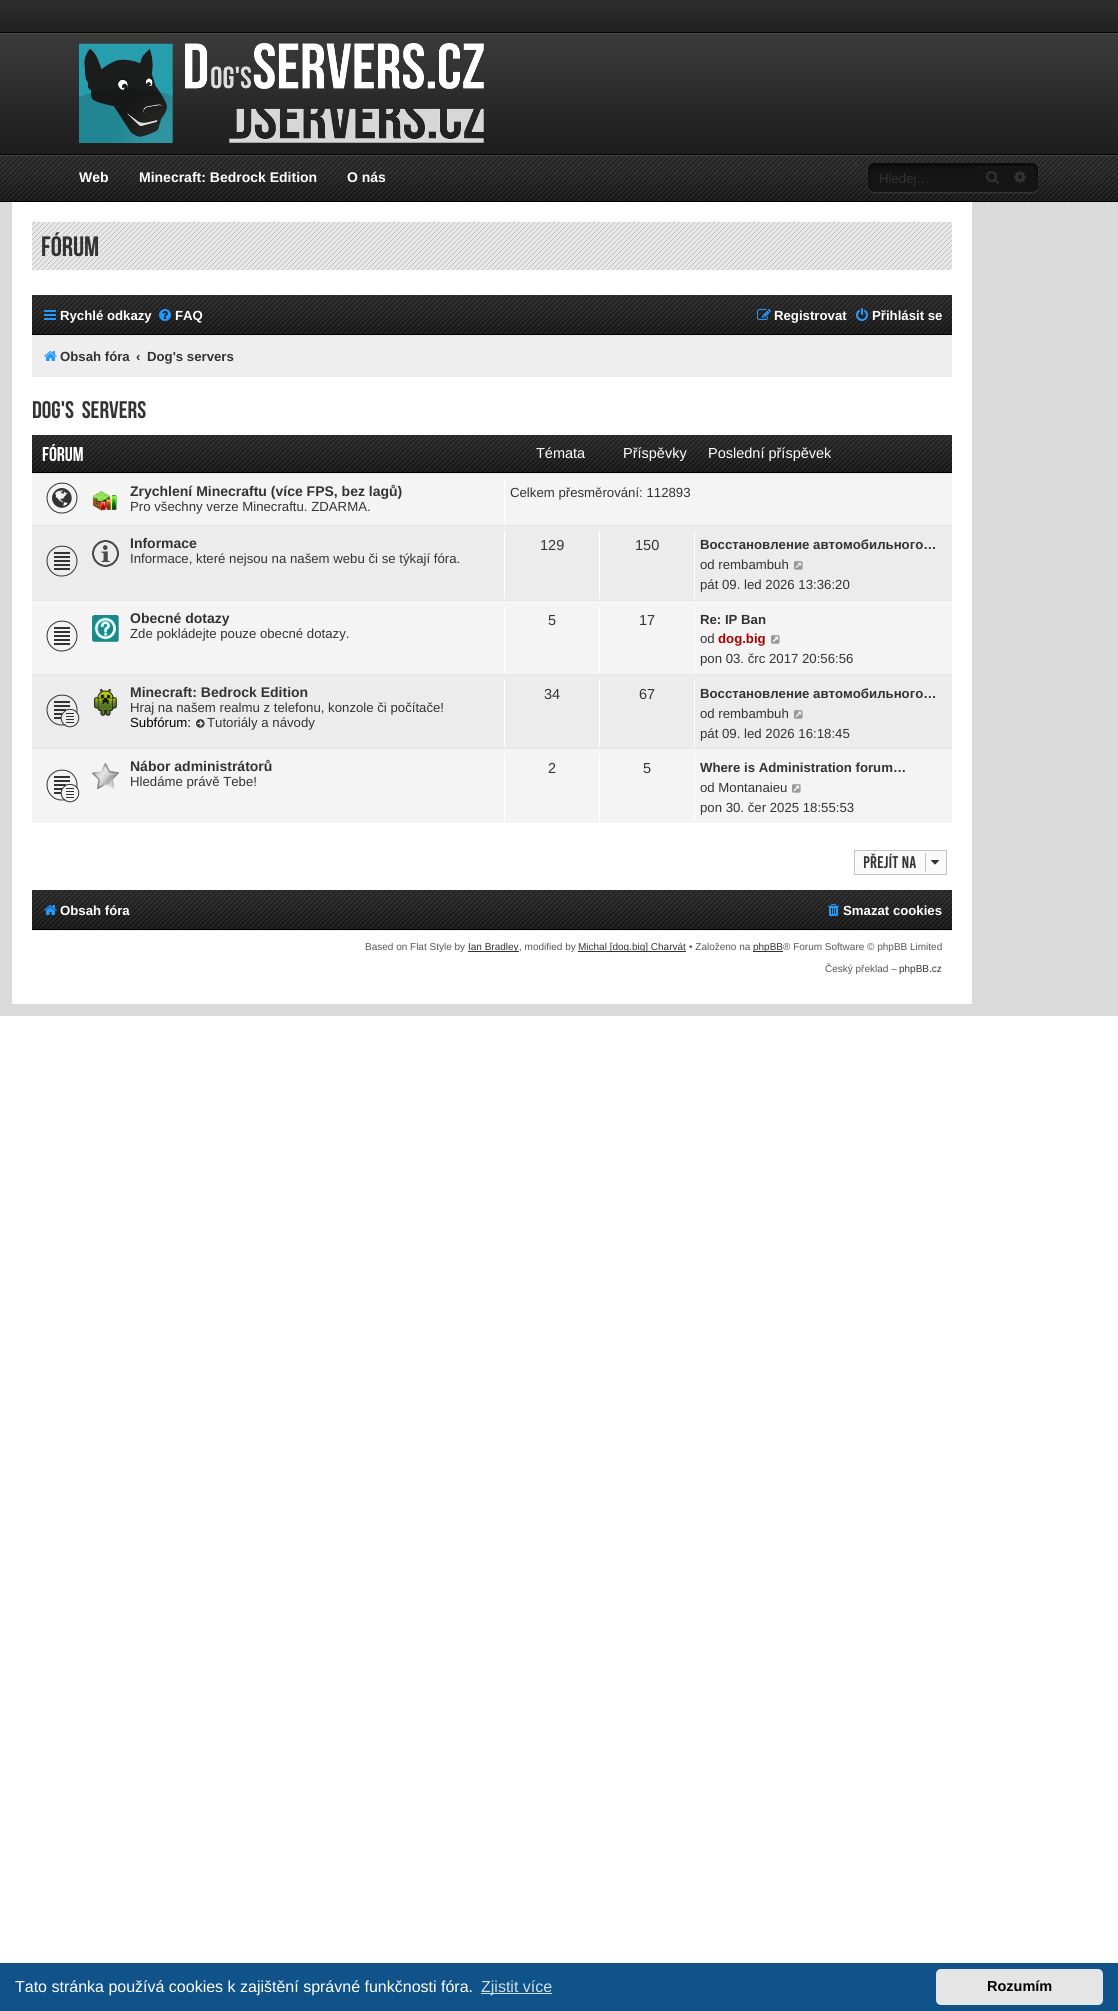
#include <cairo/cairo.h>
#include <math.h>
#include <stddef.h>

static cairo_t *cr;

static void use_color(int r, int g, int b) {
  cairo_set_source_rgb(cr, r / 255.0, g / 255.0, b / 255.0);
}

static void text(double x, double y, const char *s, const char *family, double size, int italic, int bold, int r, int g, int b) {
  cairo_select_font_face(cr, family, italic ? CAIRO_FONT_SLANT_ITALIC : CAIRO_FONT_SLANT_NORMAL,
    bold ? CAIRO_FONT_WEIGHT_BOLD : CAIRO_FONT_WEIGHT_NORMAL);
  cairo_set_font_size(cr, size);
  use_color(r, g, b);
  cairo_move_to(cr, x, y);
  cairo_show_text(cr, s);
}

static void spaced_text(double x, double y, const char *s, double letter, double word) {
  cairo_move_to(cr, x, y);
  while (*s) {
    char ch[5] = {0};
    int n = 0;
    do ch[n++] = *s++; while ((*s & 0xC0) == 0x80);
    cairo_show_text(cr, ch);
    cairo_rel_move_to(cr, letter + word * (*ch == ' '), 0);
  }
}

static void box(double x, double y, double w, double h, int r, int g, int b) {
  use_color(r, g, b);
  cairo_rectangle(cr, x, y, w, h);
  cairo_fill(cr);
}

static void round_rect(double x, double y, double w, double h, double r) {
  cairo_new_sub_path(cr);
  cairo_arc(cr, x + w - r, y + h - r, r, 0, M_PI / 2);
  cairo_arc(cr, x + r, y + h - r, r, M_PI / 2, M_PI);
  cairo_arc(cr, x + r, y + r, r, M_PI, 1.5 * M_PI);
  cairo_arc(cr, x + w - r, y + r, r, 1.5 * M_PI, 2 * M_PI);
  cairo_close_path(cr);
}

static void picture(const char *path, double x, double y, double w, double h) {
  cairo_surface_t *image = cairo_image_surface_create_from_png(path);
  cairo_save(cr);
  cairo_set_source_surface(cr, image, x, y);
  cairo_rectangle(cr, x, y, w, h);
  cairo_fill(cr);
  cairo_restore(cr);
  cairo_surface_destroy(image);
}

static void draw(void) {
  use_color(255, 255, 255);
  cairo_paint(cr);
  box(0, 202, 1118, 814, 218, 218, 218);
  picture("img_01.png", 0, 0, 1118, 202);
  picture("img_02.png", 79, 43, 405, 100);
  use_color(51, 51, 51);
  cairo_arc(cr, 855, 164, 2, 0, 2 * M_PI);
  cairo_fill(cr);
  picture("img_03.png", 867, 163, 172, 31);
  box(978, 166, 28, 3, 21, 21, 21);
  picture("img_04.png", 986, 171, 13, 13);
  box(1006, 166, 28, 19, 21, 21, 21);
  picture("img_05.png", 1014, 171, 12, 12);
  box(12, 202, 960, 802, 255, 255, 255);
  picture("img_06.png", 32, 222, 920, 48);
  picture("img_07.png", 32, 295, 920, 40);
  box(32, 335, 920, 1, 236, 236, 236);
  picture("img_08.png", 44, 310, 12, 10);
  picture("img_09.png", 159, 309, 12, 12);
  picture("img_10.png", 757, 309, 14, 11);
  picture("img_11.png", 856, 308, 12, 13);
  box(32, 336, 920, 40, 238, 238, 238);
  box(32, 376, 920, 1, 236, 236, 236);
  picture("img_12.png", 44, 351, 13, 10);
  picture("img_13.png", 32, 435, 920, 38);
  box(32, 474, 920, 51, 244, 244, 244);
  box(32, 473, 920, 1, 232, 232, 232);
  picture("img_14.png", 46, 482, 32, 32);
  picture("img_15.png", 92, 491, 25, 20);
  box(504, 479, 1, 45, 255, 255, 255);
  box(32, 526, 920, 74, 236, 236, 236);
  box(32, 525, 920, 1, 232, 232, 232);
  picture("img_16.png", 46, 545, 32, 32);
  picture("img_17.png", 92, 540, 27, 27);
  box(504, 531, 1, 68, 255, 255, 255);
  box(599, 531, 1, 68, 255, 255, 255);
  box(694, 531, 1, 68, 255, 255, 255);
  picture("img_18.png", 794, 561, 9, 9);
  box(32, 601, 920, 73, 244, 244, 244);
  box(32, 600, 920, 1, 232, 232, 232);
  picture("img_19.png", 46, 620, 32, 32);
  picture("img_20.png", 92, 615, 27, 27);
  box(504, 606, 1, 67, 255, 255, 255);
  box(599, 606, 1, 67, 255, 255, 255);
  box(694, 606, 1, 67, 255, 255, 255);
  picture("img_21.png", 771, 635, 9, 9);
  box(32, 675, 920, 73, 236, 236, 236);
  box(32, 674, 920, 1, 232, 232, 232);
  picture("img_22.png", 46, 694, 34, 34);
  picture("img_23.png", 94, 689, 23, 27);
  picture("img_24.png", 196, 719, 9, 9);
  box(504, 680, 1, 67, 255, 255, 255);
  box(599, 680, 1, 67, 255, 255, 255);
  box(694, 680, 1, 67, 255, 255, 255);
  picture("img_18.png", 794, 710, 9, 9);
  box(32, 749, 920, 74, 244, 244, 244);
  box(32, 748, 920, 1, 232, 232, 232);
  picture("img_25.png", 46, 769, 34, 34);
  picture("img_26.png", 92, 763, 27, 26);
  box(504, 754, 1, 68, 255, 255, 255);
  box(599, 754, 1, 68, 255, 255, 255);
  box(694, 754, 1, 68, 255, 255, 255);
  picture("img_21.png", 792, 784, 9, 9);
  use_color(250, 250, 250);
  cairo_rectangle(cr, 854.5, 850.5, 92, 24);
  cairo_fill_preserve(cr);
  use_color(199, 195, 191);
  cairo_set_line_width(cr, 1);
  cairo_stroke(cr);
  box(925, 853, 1, 19, 199, 195, 191);
  picture("img_27.png", 931, 860, 8, 5);
  picture("img_07.png", 32, 890, 920, 40);
  box(32, 930, 920, 1, 236, 236, 236);
  picture("img_28.png", 44, 905, 13, 10);
  picture("img_29.png", 828, 904, 11, 12);
  box(468, 951, 51, 1, 51, 51, 51);
  box(578, 951, 108, 1, 51, 51, 51);
  box(753, 951, 30, 1, 51, 51, 51);
  box(0, 1963, 1118, 48, 15, 83, 138);
  box(481, 1993, 71, 1, 207, 221, 232);
  use_color(229, 229, 229);
  round_rect(936, 1969, 167, 36, 5);
  cairo_fill(cr);
  text(79, 182, "Web", "Liberation Sans", 14, 0, 1, 255, 255, 255);
  text(139, 182, "Minecraft: Bedrock Edition", "Liberation Sans", 14, 0, 1, 255, 255, 255);
  text(347, 182, "O nás", "Liberation Sans", 14, 0, 1, 255, 255, 255);
  text(879, 183, "Hledej…", "Liberation Sans", 13.2, 0, 0, 51, 51, 51);
  text(41, 256, "FÓRUM", "Bebas Neue", 28, 0, 0, 51, 51, 51);
  text(60, 320, "Rychlé odkazy", "Liberation Sans", 13.2, 0, 1, 255, 255, 255);
  text(175, 320, "FAQ", "Liberation Sans", 13.2, 0, 1, 255, 255, 255);
  text(774, 320, "Registrovat", "Liberation Sans", 13.2, 0, 1, 255, 255, 255);
  text(872, 320, "Přihlásit se", "Liberation Sans", 13.2, 0, 1, 255, 255, 255);
  text(60, 361, "Obsah fóra", "Liberation Sans", 13.2, 0, 1, 51, 51, 51);
  text(136, 361, "‹", "Liberation Sans", 13.2, 0, 1, 51, 51, 51);
  text(147, 361, "Dog's servers", "Liberation Sans", 13.2, 0, 1, 51, 51, 51);
  cairo_select_font_face(cr, "Bebas Neue", CAIRO_FONT_SLANT_NORMAL, CAIRO_FONT_WEIGHT_NORMAL);
  cairo_set_font_size(cr, 24);
  spaced_text(32, 418, "Dog's servers", 0, 4);
  text(42, 461, "FÓRUM", "Bebas Neue", 20, 0, 0, 255, 255, 255);
  text(536, 458, "Témata", "Liberation Sans", 14.5, 0, 0, 255, 255, 255);
  text(623, 458, "Příspěvky", "Liberation Sans", 14.5, 0, 0, 255, 255, 255);
  text(708, 458, "Poslední příspěvek", "Liberation Sans", 14.5, 0, 0, 255, 255, 255);
  text(130, 496, "Zrychlení Minecraftu (více FPS, bez lagů)", "Liberation Sans", 14, 0, 1, 51, 51, 51);
  text(130, 511, "Pro všechny verze Minecraftu. ZDARMA.", "Liberation Sans", 13.2, 0, 0, 51, 51, 51);
  text(510, 497, "Celkem přesměrování: 112893", "Liberation Sans", 13.2, 0, 0, 51, 51, 51);
  text(130, 548, "Informace", "Liberation Sans", 14, 0, 1, 51, 51, 51);
  text(130, 563, "Informace, které nejsou na našem webu či se týkají fóra.", "Liberation Sans", 13.2, 0, 0, 51, 51, 51);
  text(540, 550, "129", "Liberation Sans", 14.5, 0, 0, 51, 51, 51);
  text(635, 550, "150", "Liberation Sans", 14.5, 0, 0, 51, 51, 51);
  text(700, 549, "Восстановление автомобильного…", "Liberation Sans", 13.2, 0, 1, 51, 51, 51);
  text(700, 569, "od rembambuh", "Liberation Sans", 13.2, 0, 0, 51, 51, 51);
  text(700, 589, "pát 09. led 2026 13:36:20", "Liberation Sans", 13.2, 0, 0, 51, 51, 51);
  text(130, 623, "Obecné dotazy", "Liberation Sans", 14, 0, 1, 51, 51, 51);
  text(130, 638, "Zde pokládejte pouze obecné dotazy.", "Liberation Sans", 13.2, 0, 0, 51, 51, 51);
  text(548, 625, "5", "Liberation Sans", 14.5, 0, 0, 51, 51, 51);
  text(639, 625, "17", "Liberation Sans", 14.5, 0, 0, 51, 51, 51);
  text(700, 624, "Re: IP Ban", "Liberation Sans", 13.2, 0, 1, 51, 51, 51);
  text(700, 643, "od", "Liberation Sans", 13.2, 0, 0, 51, 51, 51);
  text(718, 643, "dog.big", "Liberation Sans", 13.2, 0, 1, 170, 0, 0);
  text(700, 663, "pon 03. črc 2017 20:56:56", "Liberation Sans", 13.2, 0, 0, 51, 51, 51);
  text(130, 697, "Minecraft: Bedrock Edition", "Liberation Sans", 14, 0, 1, 51, 51, 51);
  text(130, 712, "Hraj na našem realmu z telefonu, konzole či počítače!", "Liberation Sans", 13.2, 0, 0, 51, 51, 51);
  text(130, 727, "Subfórum:", "Liberation Sans", 13.2, 0, 0, 0, 0, 0);
  text(207, 727, "Tutoriály a návody", "Liberation Sans", 13.2, 0, 0, 51, 51, 51);
  text(544, 699, "34", "Liberation Sans", 14.5, 0, 0, 51, 51, 51);
  text(639, 699, "67", "Liberation Sans", 14.5, 0, 0, 51, 51, 51);
  text(700, 698, "Восстановление автомобильного…", "Liberation Sans", 13.2, 0, 1, 51, 51, 51);
  text(700, 718, "od rembambuh", "Liberation Sans", 13.2, 0, 0, 51, 51, 51);
  text(700, 738, "pát 09. led 2026 16:18:45", "Liberation Sans", 13.2, 0, 0, 51, 51, 51);
  text(130, 771, "Nábor administrátorů", "Liberation Sans", 14, 0, 1, 51, 51, 51);
  text(130, 786, "Hledáme právě Tebe!", "Liberation Sans", 13.2, 0, 0, 51, 51, 51);
  text(548, 773, "2", "Liberation Sans", 14.5, 0, 0, 51, 51, 51);
  text(643, 773, "5", "Liberation Sans", 14.5, 0, 0, 51, 51, 51);
  text(700, 772, "Where is Administration forum…", "Liberation Sans", 13.2, 0, 1, 51, 51, 51);
  text(700, 792, "od Montanaieu", "Liberation Sans", 13.2, 0, 0, 51, 51, 51);
  text(700, 812, "pon 30. čer 2025 18:55:53", "Liberation Sans", 13.2, 0, 0, 51, 51, 51);
  text(863, 868, "Přejít na", "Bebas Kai", 13, 0, 0, 51, 51, 51);
  text(60, 915, "Obsah fóra", "Liberation Sans", 13.2, 0, 1, 255, 255, 255);
  text(843, 915, "Smazat cookies", "Liberation Sans", 13.2, 0, 1, 255, 255, 255);
  text(365, 950, "Based on Flat Style by", "Liberation Sans", 10, 0, 0, 85, 85, 85);
  text(468, 950, "Ian Bradley", "Liberation Sans", 10, 0, 0, 51, 51, 51);
  text(519, 950, ", modified by", "Liberation Sans", 10, 0, 0, 85, 85, 85);
  text(578, 950, "Michal [dog.big] Charvát", "Liberation Sans", 10, 0, 0, 51, 51, 51);
  text(689, 950, "• Založeno na", "Liberation Sans", 10, 0, 0, 85, 85, 85);
  text(753, 950, "phpBB", "Liberation Sans", 10, 0, 0, 51, 51, 51);
  text(783, 950, "® Forum Software © phpBB Limited", "Liberation Sans", 10, 0, 0, 85, 85, 85);
  text(825, 972, "Český překlad –", "Liberation Sans", 10, 0, 0, 85, 85, 85);
  text(899, 972, "phpBB.cz", "Liberation Sans", 10, 0, 0, 51, 51, 51);
  text(15, 1992, "Tato stránka používá cookies k zajištění správné funkčnosti fóra.", "Liberation Sans", 16, 0, 0, 255, 255, 255);
  text(481, 1992, "Zjistit více", "Liberation Sans", 16, 0, 0, 207, 221, 232);
  text(987, 1991, "Rozumím", "Liberation Sans", 14.5, 0, 1, 0, 0, 0);
}

int main(void) {
  cairo_surface_t *surface = cairo_image_surface_create(CAIRO_FORMAT_RGB24, 1118, 2011);
  cr = cairo_create(surface);
  cairo_font_options_t *options = cairo_font_options_create();
  cairo_font_options_set_hint_metrics(options, CAIRO_HINT_METRICS_OFF);
  cairo_font_options_set_hint_style(options, CAIRO_HINT_STYLE_NONE);
  cairo_set_font_options(cr, options);
  cairo_set_miter_limit(cr, 4);
  draw();
  cairo_surface_write_to_png(surface, "out.png");
  cairo_font_options_destroy(options);
  cairo_destroy(cr);
  cairo_surface_destroy(surface);
  return 0;
}
